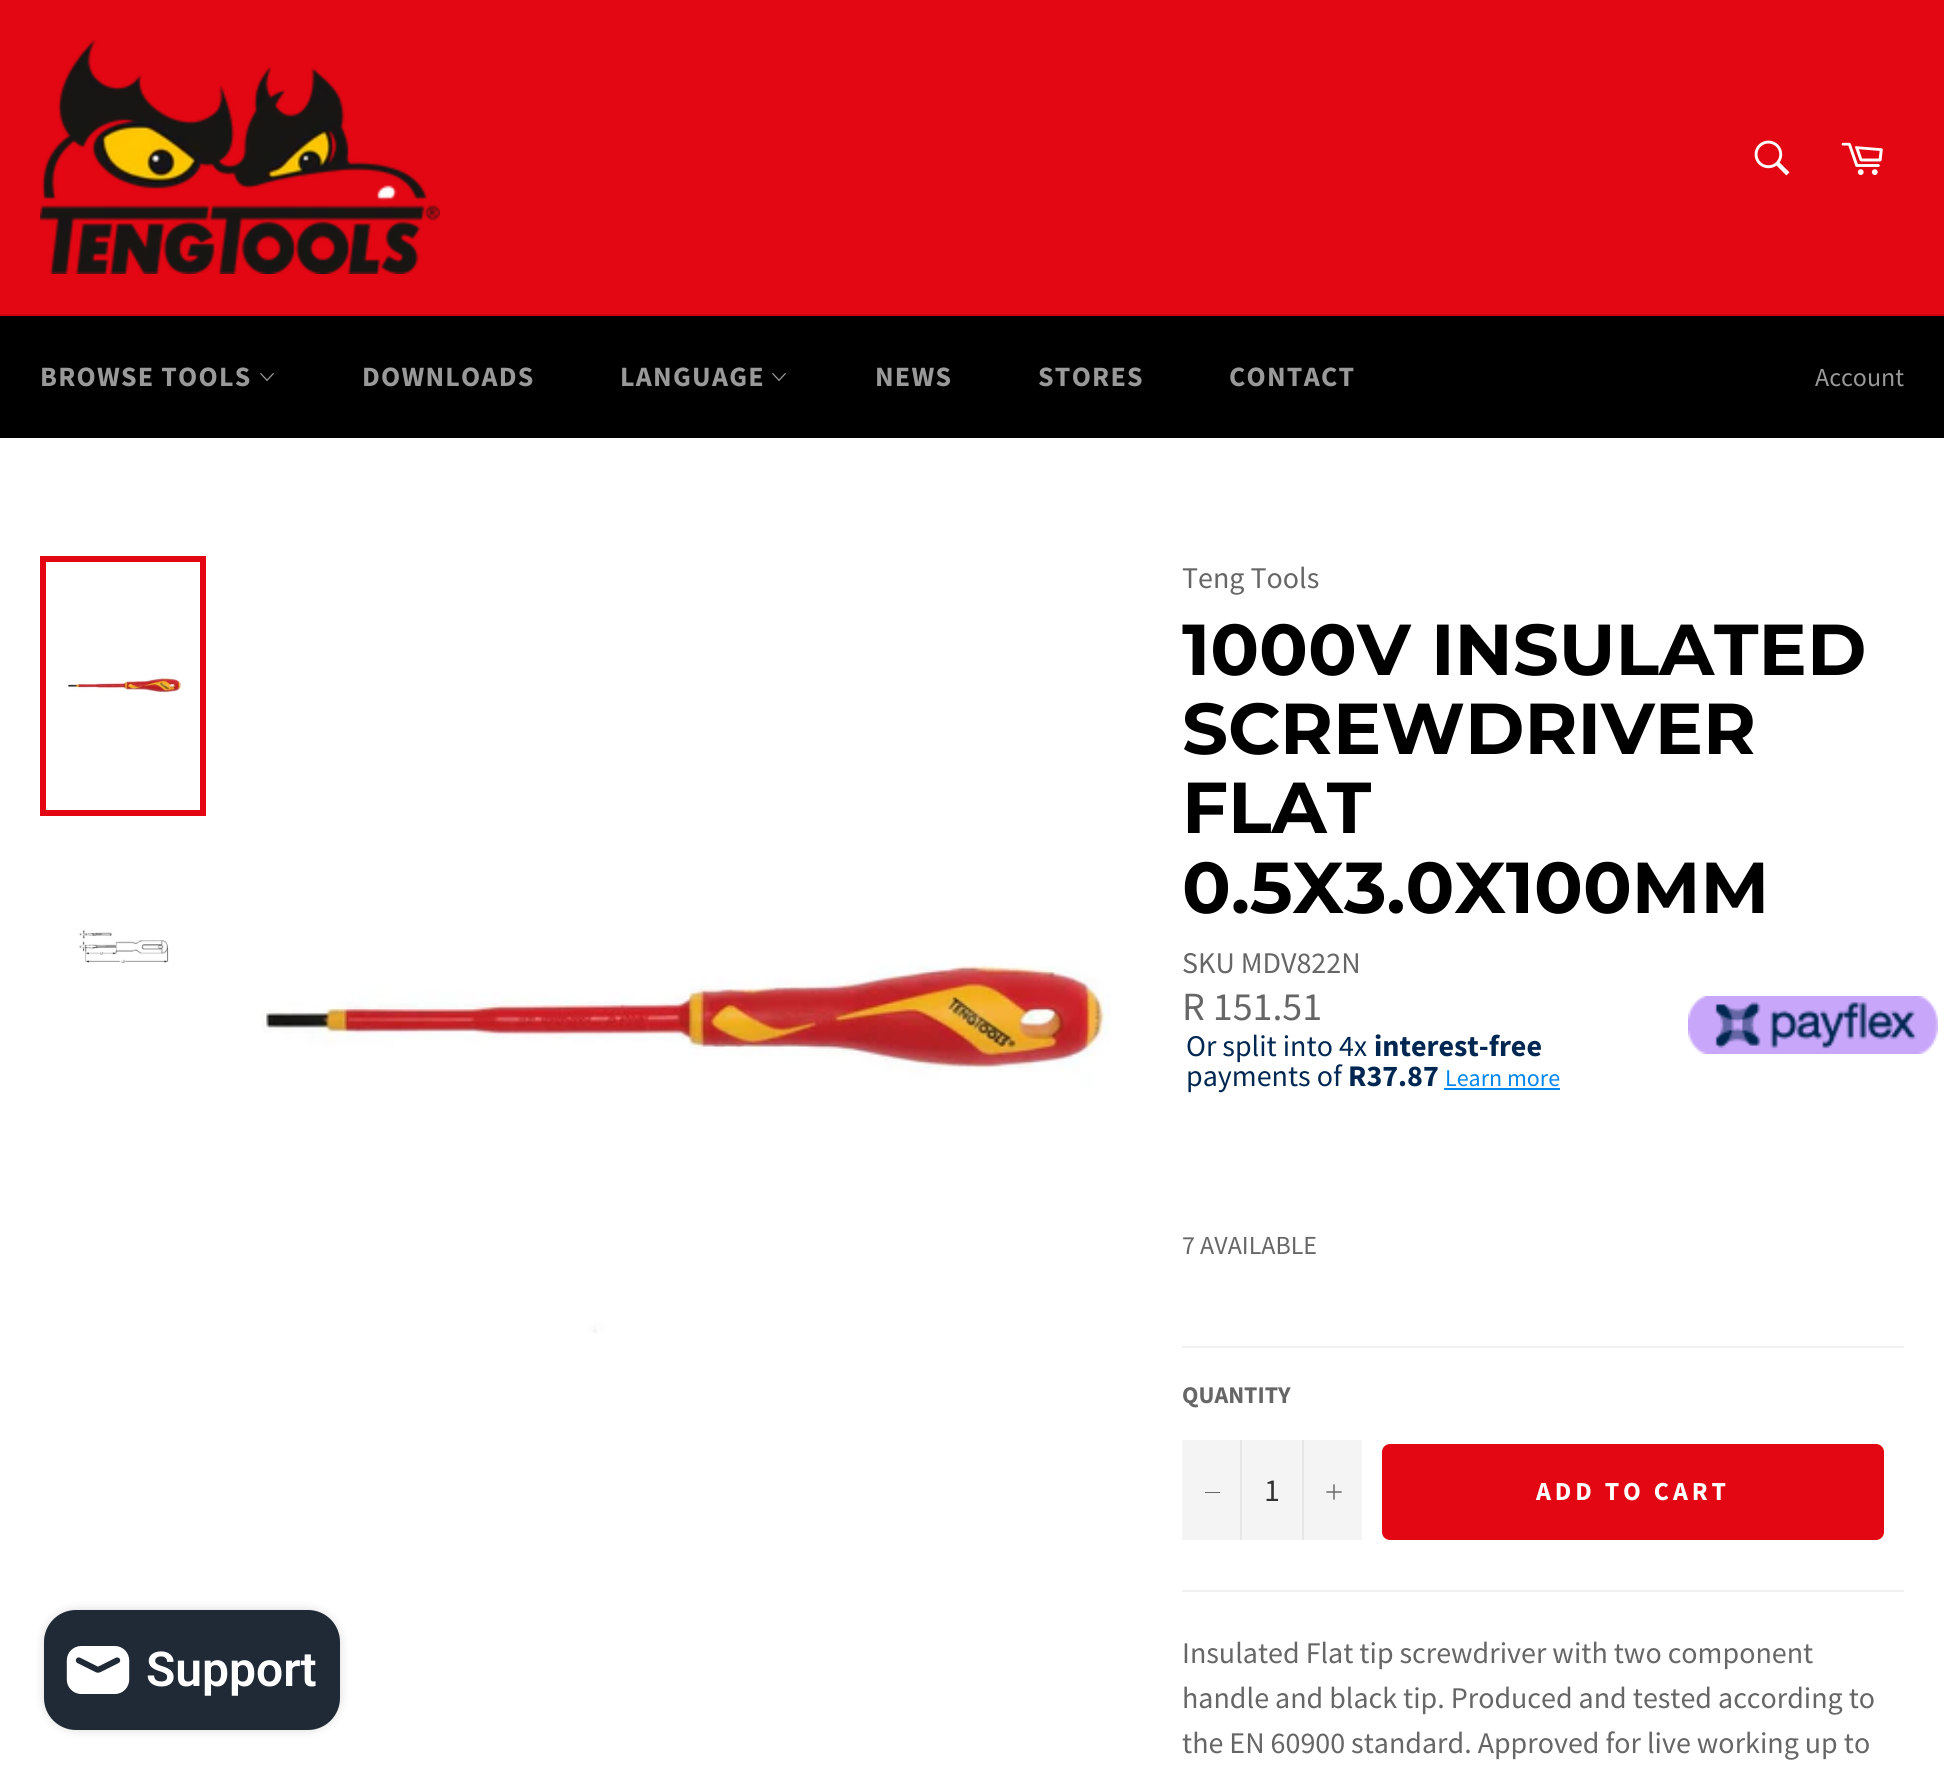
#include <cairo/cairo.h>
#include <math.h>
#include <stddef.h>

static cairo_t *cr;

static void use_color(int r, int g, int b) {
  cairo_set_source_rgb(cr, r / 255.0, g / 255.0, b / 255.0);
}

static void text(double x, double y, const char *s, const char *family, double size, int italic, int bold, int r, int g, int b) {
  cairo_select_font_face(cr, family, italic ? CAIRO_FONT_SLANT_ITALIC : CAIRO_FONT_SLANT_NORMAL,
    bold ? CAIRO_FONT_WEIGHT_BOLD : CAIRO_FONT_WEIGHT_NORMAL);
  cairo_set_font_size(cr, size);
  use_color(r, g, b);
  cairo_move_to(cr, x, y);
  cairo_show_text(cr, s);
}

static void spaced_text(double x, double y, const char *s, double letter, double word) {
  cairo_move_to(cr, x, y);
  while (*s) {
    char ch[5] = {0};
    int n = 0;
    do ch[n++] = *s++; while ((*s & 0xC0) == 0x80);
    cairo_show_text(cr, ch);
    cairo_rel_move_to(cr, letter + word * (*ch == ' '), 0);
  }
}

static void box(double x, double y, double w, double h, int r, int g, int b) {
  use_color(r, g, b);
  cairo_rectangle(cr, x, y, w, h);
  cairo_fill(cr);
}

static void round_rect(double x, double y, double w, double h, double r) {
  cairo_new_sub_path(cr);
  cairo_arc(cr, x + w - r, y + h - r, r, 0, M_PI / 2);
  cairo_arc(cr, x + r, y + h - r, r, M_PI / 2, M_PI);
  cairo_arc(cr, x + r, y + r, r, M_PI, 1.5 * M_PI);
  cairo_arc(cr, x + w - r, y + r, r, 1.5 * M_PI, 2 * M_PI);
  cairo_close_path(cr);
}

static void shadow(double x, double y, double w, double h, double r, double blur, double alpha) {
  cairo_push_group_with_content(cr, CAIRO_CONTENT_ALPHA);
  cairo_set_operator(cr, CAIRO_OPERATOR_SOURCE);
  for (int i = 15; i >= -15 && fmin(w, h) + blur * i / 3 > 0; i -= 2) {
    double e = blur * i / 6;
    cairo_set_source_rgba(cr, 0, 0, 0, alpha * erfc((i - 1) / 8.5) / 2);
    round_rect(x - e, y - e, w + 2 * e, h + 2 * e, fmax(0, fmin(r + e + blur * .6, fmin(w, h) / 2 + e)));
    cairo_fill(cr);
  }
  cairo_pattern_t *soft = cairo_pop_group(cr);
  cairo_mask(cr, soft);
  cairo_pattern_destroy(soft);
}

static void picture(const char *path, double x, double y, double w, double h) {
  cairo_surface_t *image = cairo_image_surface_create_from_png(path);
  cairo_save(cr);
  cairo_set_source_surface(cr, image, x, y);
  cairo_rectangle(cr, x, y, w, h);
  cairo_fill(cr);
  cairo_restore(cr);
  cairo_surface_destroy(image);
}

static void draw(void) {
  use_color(227, 6, 19);
  cairo_paint(cr);
  picture("img_01.png", 40, 40, 400, 234);
  picture("img_02.png", 1754, 140, 36, 36);
  picture("img_03.png", 1841, 142, 42, 33);
  box(0, 316, 1944, 122, 0, 0, 0);
  box(0, 314, 1944, 2, 202, 5, 17);
  picture("img_04.png", 260, 372, 14, 9);
  picture("img_04.png", 772, 372, 14, 9);
  box(0, 438, 1944, 1334, 255, 255, 255);
  use_color(0, 0, 0);
  shadow(44, 1610, 296, 120, 32, 5, 0.15);
  use_color(32, 42, 54);
  round_rect(44, 1610, 296, 120, 32);
  cairo_fill(cr);
  picture("img_05.png", 66, 1646, 64, 48);
  picture("img_06.png", 68, 675, 118, 18);
  cairo_rectangle(cr, 43, 559, 160, 254);
  use_color(227, 6, 19);
  cairo_set_line_width(cr, 6);
  cairo_stroke(cr);
  picture("img_07.png", 79, 930, 90, 34);
  picture("img_08.png", 261, 963, 850, 371);
  picture("img_09.png", 1688, 996, 250, 58);
  box(1444, 1088, 116, 2, 0, 134, 239);
  box(1182, 1346, 722, 2, 240, 240, 240);
  box(1182, 1440, 180, 100, 244, 244, 244);
  box(1240, 1440, 2, 100, 231, 231, 231);
  box(1205, 1492, 15, 1, 102, 102, 102);
  box(1302, 1440, 2, 100, 231, 231, 231);
  picture("img_10.png", 1326, 1484, 16, 16);
  use_color(227, 6, 19);
  round_rect(1382, 1444, 502, 96, 8);
  cairo_fill(cr);
  box(1182, 1590, 722, 2, 240, 240, 240);
  cairo_select_font_face(cr, "Source Sans Pro", CAIRO_FONT_SLANT_NORMAL, CAIRO_FONT_WEIGHT_BOLD);
  cairo_set_font_size(cr, 28);
  use_color(153, 153, 153);
  spaced_text(40, 386, "BROWSE TOOLS", 1.25, 0);
  spaced_text(362, 386, "DOWNLOADS", 1.25, 0);
  spaced_text(620, 386, "LANGUAGE", 1.25, 0);
  spaced_text(875, 386, "NEWS", 1.25, 0);
  spaced_text(1038, 386, "STORES", 1.25, 0);
  spaced_text(1229, 386, "CONTACT", 1.25, 0);
  text(1815, 386, "Account", "Source Sans Pro", 26, 0, 0, 153, 153, 153);
  text(146, 1686, "Support", "Roboto SemiBold", 48, 0, 0, 255, 255, 255);
  text(1182, 588, "Teng Tools", "Source Sans Pro", 30, 0, 0, 102, 102, 102);
  text(1182, 675, "1000V INSULATED", "Montserrat", 72, 0, 1, 0, 0, 0);
  text(1182, 754, "SCREWDRIVER", "Montserrat", 72, 0, 1, 0, 0, 0);
  text(1182, 833, "FLAT", "Montserrat", 72, 0, 1, 0, 0, 0);
  text(1182, 913, "0.5X3.0X100MM", "Montserrat", 72, 0, 1, 0, 0, 0);
  text(1182, 973, "SKU MDV822N", "Source Sans Pro", 30, 0, 0, 102, 102, 102);
  text(1182, 1020, "R 151.51", "Source Sans Pro", 40, 0, 0, 102, 102, 102);
  text(1186, 1056, "Or split into 4x", "Source Sans Pro", 30, 0, 0, 0, 39, 81);
  text(1374, 1056, "interest-free", "Source Sans Pro", 30, 0, 1, 0, 39, 81);
  text(1186, 1086, "payments of", "Source Sans Pro", 30, 0, 0, 0, 39, 81);
  text(1348, 1086, "R37.87", "Source Sans Pro", 30, 0, 1, 0, 39, 81);
  text(1445, 1086, "Learn more", "Source Sans Pro", 24, 0, 0, 0, 134, 239);
  text(1182, 1254, "7 AVAILABLE", "Source Sans Pro", 26, 0, 0, 102, 102, 102);
  text(1182, 1403, "QUANTITY", "Source Sans Pro", 24, 0, 1, 102, 102, 102);
  text(1264, 1501, "1", "Source Sans Pro", 32, 0, 0, 51, 51, 51);
  cairo_select_font_face(cr, "Source Sans Pro", CAIRO_FONT_SLANT_NORMAL, CAIRO_FONT_WEIGHT_BOLD);
  cairo_set_font_size(cr, 26);
  use_color(255, 255, 255);
  spaced_text(1536, 1500, "ADD TO CART", 3.9, 0);
  text(1182, 1663, "Insulated Flat tip screwdriver with two component", "Source Sans Pro", 30, 0, 0, 102, 102, 102);
  text(1182, 1708, "handle and black tip. Produced and tested according to", "Source Sans Pro", 30, 0, 0, 102, 102, 102);
  text(1182, 1753, "the EN 60900 standard. Approved for live working up to", "Source Sans Pro", 30, 0, 0, 102, 102, 102);
}

int main(void) {
  cairo_surface_t *surface = cairo_image_surface_create(CAIRO_FORMAT_RGB24, 1944, 1772);
  cr = cairo_create(surface);
  cairo_font_options_t *options = cairo_font_options_create();
  cairo_font_options_set_hint_metrics(options, CAIRO_HINT_METRICS_OFF);
  cairo_font_options_set_hint_style(options, CAIRO_HINT_STYLE_NONE);
  cairo_set_font_options(cr, options);
  cairo_set_miter_limit(cr, 4);
  draw();
  cairo_surface_write_to_png(surface, "out.png");
  cairo_font_options_destroy(options);
  cairo_destroy(cr);
  cairo_surface_destroy(surface);
  return 0;
}
